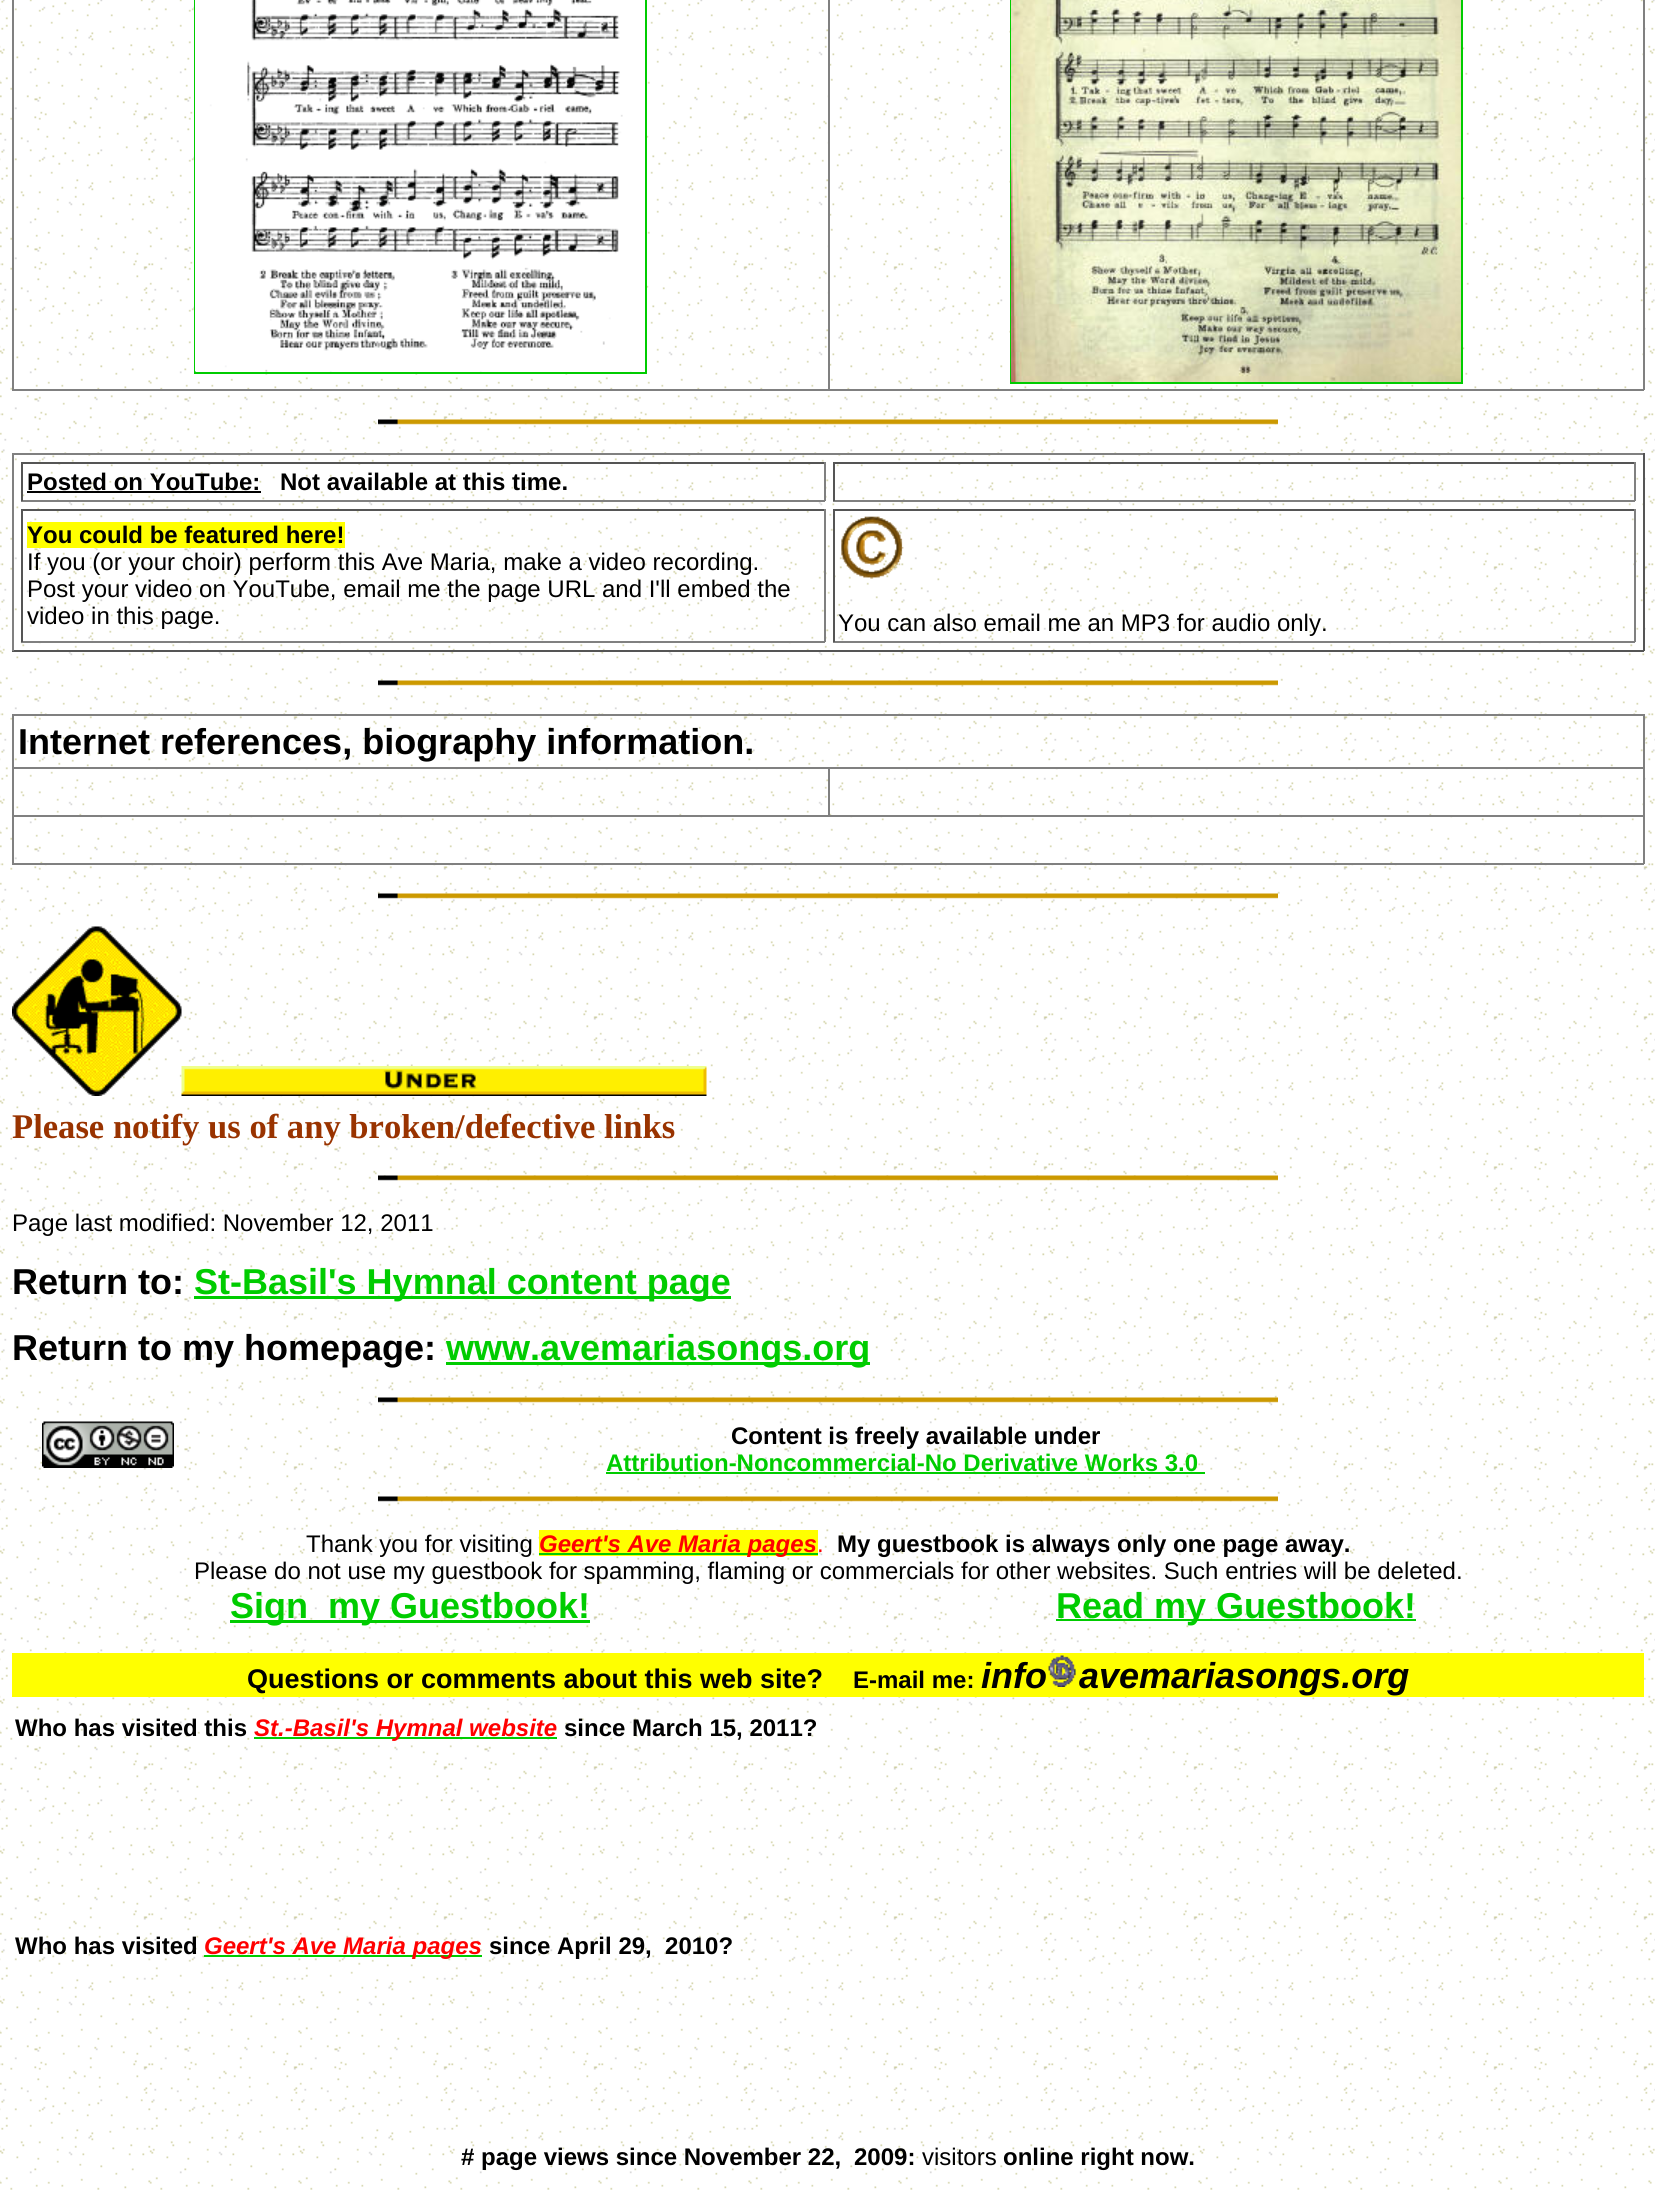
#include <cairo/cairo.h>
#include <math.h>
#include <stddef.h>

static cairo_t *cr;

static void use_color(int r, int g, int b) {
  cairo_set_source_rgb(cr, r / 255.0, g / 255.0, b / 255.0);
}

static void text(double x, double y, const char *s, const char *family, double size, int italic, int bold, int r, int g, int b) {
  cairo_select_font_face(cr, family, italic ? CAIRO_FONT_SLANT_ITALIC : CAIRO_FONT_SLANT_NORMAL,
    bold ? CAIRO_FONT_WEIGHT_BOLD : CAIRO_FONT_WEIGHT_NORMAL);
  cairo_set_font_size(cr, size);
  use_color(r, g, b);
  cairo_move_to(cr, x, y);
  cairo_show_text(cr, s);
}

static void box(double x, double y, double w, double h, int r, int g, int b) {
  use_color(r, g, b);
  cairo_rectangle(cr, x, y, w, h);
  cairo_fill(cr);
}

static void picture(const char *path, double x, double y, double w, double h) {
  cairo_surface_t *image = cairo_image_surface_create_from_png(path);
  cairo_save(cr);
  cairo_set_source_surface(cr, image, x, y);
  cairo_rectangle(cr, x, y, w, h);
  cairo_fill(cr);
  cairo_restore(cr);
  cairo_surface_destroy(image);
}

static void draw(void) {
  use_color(255, 255, 255);
  cairo_paint(cr);
  picture("img_01.png", 0, 0, 1655, 2190);
  box(1643, 0, 2, 390, 128, 128, 128);
  box(12, 389, 1632, 2, 128, 128, 128);
  box(12, 0, 2, 390, 128, 128, 128);
  cairo_rectangle(cr, 195, -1, 451, 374);
  use_color(0, 204, 0);
  cairo_stroke(cr);
  picture("img_02.png", 195, 0, 450, 372);
  box(828, 0, 2, 390, 128, 128, 128);
  cairo_rectangle(cr, 1011, -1, 451, 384);
  use_color(0, 204, 0);
  cairo_stroke(cr);
  picture("img_03.png", 1011, 0, 450, 382);
  picture("img_04.png", 378, 419, 900, 6);
  box(12, 453, 1632, 2, 128, 128, 128);
  box(1643, 453, 2, 198, 85, 85, 85);
  box(12, 650, 1632, 2, 85, 85, 85);
  box(12, 453, 2, 198, 128, 128, 128);
  box(21, 462, 804, 2, 85, 85, 85);
  box(824, 462, 2, 39, 128, 128, 128);
  box(21, 500, 804, 2, 128, 128, 128);
  box(21, 462, 2, 39, 85, 85, 85);
  box(27, 491, 234, 2, 0, 0, 0);
  box(833, 462, 802, 2, 85, 85, 85);
  box(1634, 462, 2, 39, 128, 128, 128);
  box(833, 500, 802, 2, 128, 128, 128);
  box(833, 462, 2, 39, 85, 85, 85);
  box(21, 509, 804, 2, 85, 85, 85);
  box(824, 509, 2, 133, 128, 128, 128);
  box(21, 641, 804, 2, 128, 128, 128);
  box(21, 509, 2, 133, 85, 85, 85);
  box(27, 522, 318, 26, 255, 255, 0);
  box(833, 509, 802, 2, 85, 85, 85);
  box(1634, 509, 2, 133, 128, 128, 128);
  box(833, 641, 802, 2, 128, 128, 128);
  box(833, 509, 2, 133, 85, 85, 85);
  picture("img_05.png", 841, 516, 63, 63);
  picture("img_06.png", 378, 680, 900, 6);
  box(12, 714, 1632, 2, 128, 128, 128);
  box(1643, 714, 2, 150, 128, 128, 128);
  box(12, 863, 1632, 2, 128, 128, 128);
  box(12, 714, 2, 150, 128, 128, 128);
  box(828, 767, 816, 2, 128, 128, 128);
  box(12, 815, 1632, 2, 128, 128, 128);
  box(828, 767, 2, 49, 128, 128, 128);
  box(12, 767, 818, 2, 128, 128, 128);
  picture("img_07.png", 378, 893, 900, 6);
  picture("img_08.png", 12, 926, 170, 170);
  picture("img_09.png", 181, 1066, 526, 30);
  picture("img_10.png", 378, 1175, 900, 6);
  box(194, 1296, 537, 3, 0, 204, 0);
  box(446, 1362, 424, 3, 0, 204, 0);
  picture("img_11.png", 378, 1397, 900, 6);
  picture("img_12.png", 42, 1421, 132, 47);
  box(606, 1472, 599, 2, 0, 204, 0);
  picture("img_13.png", 378, 1496, 900, 6);
  box(539, 1530, 279, 26, 255, 255, 0);
  box(539, 1553, 279, 2, 0, 204, 0);
  box(230, 1620, 360, 3, 0, 204, 0);
  box(1056, 1619, 360, 2, 0, 204, 0);
  box(12, 1653, 1632, 44, 255, 255, 0);
  picture("img_14.png", 1048, 1655, 28, 32);
  box(254, 1737, 303, 2, 0, 204, 0);
  box(204, 1955, 278, 2, 0, 204, 0);
  text(27, 490, "Posted on YouTube:", "Liberation Sans", 24, 0, 1, 0, 0, 0);
  text(280, 490, "Not available at this time.", "Liberation Sans", 24, 0, 1, 0, 0, 0);
  text(27, 543, "You could be featured here!", "Liberation Sans", 24, 0, 1, 0, 0, 0);
  text(27, 570, "If you (or your choir) perform this Ave Maria, make a video recording.", "Liberation Sans", 24, 0, 0, 0, 0, 0);
  text(27, 597, "Post your video on YouTube, email me the page URL and I'll embed the", "Liberation Sans", 24, 0, 0, 0, 0, 0);
  text(27, 624, "video in this page.", "Liberation Sans", 24, 0, 0, 0, 0, 0);
  text(838, 631, "You can also email me an MP3 for audio only.", "Liberation Sans", 24, 0, 0, 0, 0, 0);
  text(18, 754, "Internet references, biography information.", "Liberation Sans", 36, 0, 1, 0, 0, 0);
  text(12, 1138, "Please notify us of any broken/defective links", "Liberation Serif", 34.6, 0, 1, 153, 51, 0);
  text(12, 1231, "Page last modified: November 12, 2011", "Liberation Sans", 24, 0, 0, 0, 0, 0);
  text(12, 1294, "Return to:", "Liberation Sans", 36, 0, 1, 0, 0, 0);
  text(194, 1294, "St-Basil's Hymnal content page", "Liberation Sans", 36, 0, 1, 0, 204, 0);
  text(12, 1360, "Return to my homepage:", "Liberation Sans", 36, 0, 1, 0, 0, 0);
  text(446, 1360, "www.avemariasongs.org", "Liberation Sans", 36, 0, 1, 0, 204, 0);
  text(731, 1444, "Content is freely available under", "Liberation Sans", 24, 0, 1, 0, 0, 0);
  text(606, 1471, "Attribution-Noncommercial-No Derivative Works 3.0", "Liberation Sans", 24, 0, 1, 0, 204, 0);
  text(306, 1552, "Thank you for visiting", "Liberation Sans", 24, 0, 0, 0, 0, 0);
  text(539, 1552, "Geert's Ave Maria pages", "Liberation Sans", 24, 1, 1, 255, 0, 0);
  text(817, 1552, ".", "Liberation Sans", 24, 0, 0, 255, 0, 0);
  text(837, 1552, "My guestbook is always only one page away.", "Liberation Sans", 24, 0, 1, 0, 0, 0);
  text(194, 1579, "Please do not use my guestbook for spamming, flaming or commercials for other websites. Such entries will be deleted.", "Liberation Sans", 24, 0, 0, 0, 0, 0);
  text(230, 1618, "Sign", "Liberation Sans", 36, 0, 1, 0, 204, 0);
  text(328, 1618, "my Guestbook!", "Liberation Sans", 36, 0, 1, 0, 204, 0);
  text(1056, 1618, "Read my Guestbook!", "Liberation Sans", 36, 0, 1, 0, 204, 0);
  text(247, 1688, "Questions or comments about this web site?", "Liberation Sans", 27, 0, 1, 0, 0, 0);
  text(853, 1688, "E-mail me:", "Liberation Sans", 24, 0, 1, 0, 0, 0);
  text(981, 1688, "info", "Liberation Sans", 36, 1, 1, 0, 0, 0);
  text(1079, 1688, "avemariasongs.org", "Liberation Sans", 36, 1, 1, 0, 0, 0);
  text(15, 1736, "Who has visited this", "Liberation Sans", 24, 0, 1, 0, 0, 0);
  text(254, 1736, "St.-Basil's Hymnal website", "Liberation Sans", 24, 1, 1, 255, 0, 0);
  text(564, 1736, "since March 15, 2011?", "Liberation Sans", 24, 0, 1, 0, 0, 0);
  text(15, 1954, "Who has visited", "Liberation Sans", 24, 0, 1, 0, 0, 0);
  text(204, 1954, "Geert's Ave Maria pages", "Liberation Sans", 24, 1, 1, 255, 0, 0);
  text(489, 1954, "since April 29,  2010?", "Liberation Sans", 24, 0, 1, 0, 0, 0);
  text(461, 2165, "# page views since November 22,", "Liberation Sans", 24, 0, 1, 0, 0, 0);
  text(854, 2165, "2009:", "Liberation Sans", 24, 0, 1, 0, 0, 0);
  text(922, 2165, "visitors", "Liberation Sans", 24, 0, 0, 0, 0, 0);
  text(1003, 2165, "online right now.", "Liberation Sans", 24, 0, 1, 0, 0, 0);
}

int main(void) {
  cairo_surface_t *surface = cairo_image_surface_create(CAIRO_FORMAT_RGB24, 1655, 2195);
  cr = cairo_create(surface);
  cairo_font_options_t *options = cairo_font_options_create();
  cairo_font_options_set_hint_metrics(options, CAIRO_HINT_METRICS_OFF);
  cairo_font_options_set_hint_style(options, CAIRO_HINT_STYLE_NONE);
  cairo_set_font_options(cr, options);
  cairo_set_miter_limit(cr, 4);
  draw();
  cairo_surface_write_to_png(surface, "out.png");
  cairo_font_options_destroy(options);
  cairo_destroy(cr);
  cairo_surface_destroy(surface);
  return 0;
}
